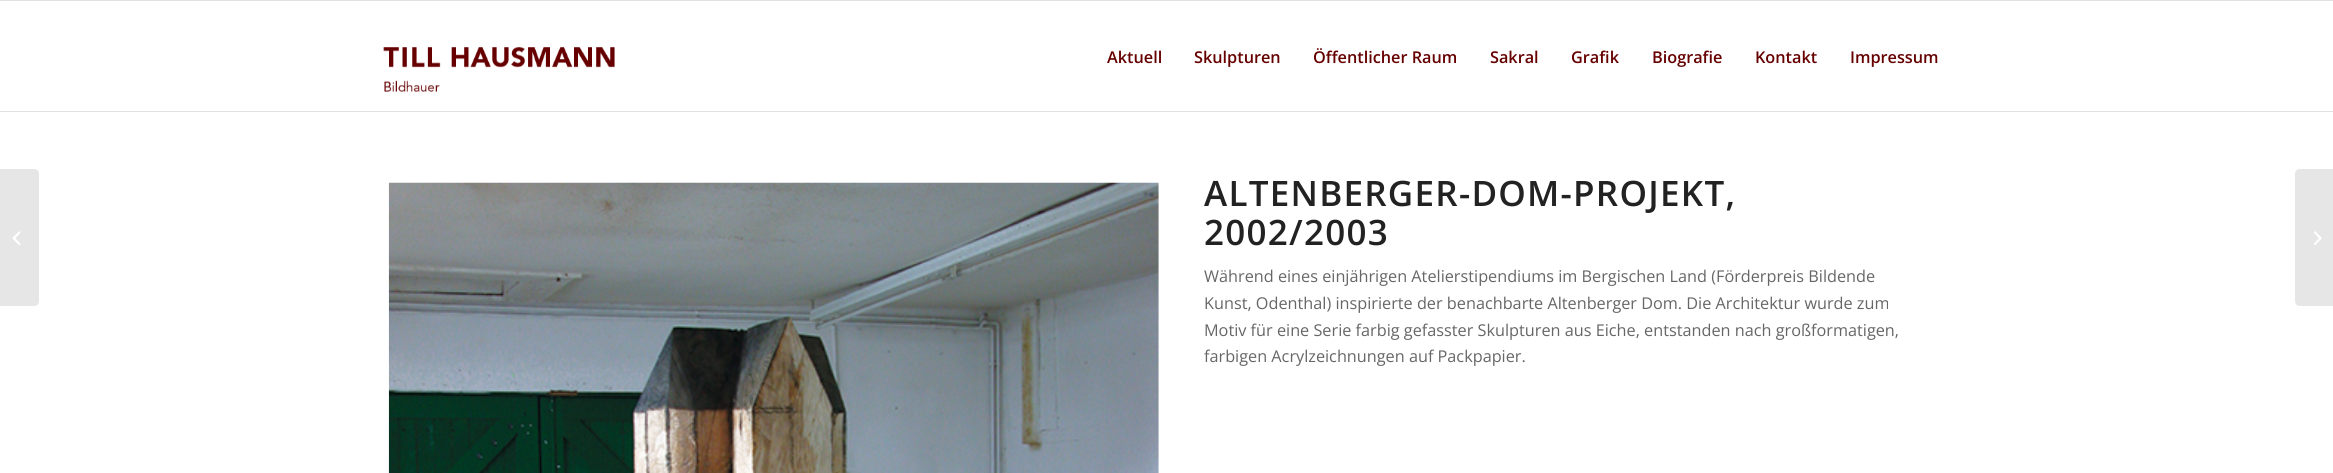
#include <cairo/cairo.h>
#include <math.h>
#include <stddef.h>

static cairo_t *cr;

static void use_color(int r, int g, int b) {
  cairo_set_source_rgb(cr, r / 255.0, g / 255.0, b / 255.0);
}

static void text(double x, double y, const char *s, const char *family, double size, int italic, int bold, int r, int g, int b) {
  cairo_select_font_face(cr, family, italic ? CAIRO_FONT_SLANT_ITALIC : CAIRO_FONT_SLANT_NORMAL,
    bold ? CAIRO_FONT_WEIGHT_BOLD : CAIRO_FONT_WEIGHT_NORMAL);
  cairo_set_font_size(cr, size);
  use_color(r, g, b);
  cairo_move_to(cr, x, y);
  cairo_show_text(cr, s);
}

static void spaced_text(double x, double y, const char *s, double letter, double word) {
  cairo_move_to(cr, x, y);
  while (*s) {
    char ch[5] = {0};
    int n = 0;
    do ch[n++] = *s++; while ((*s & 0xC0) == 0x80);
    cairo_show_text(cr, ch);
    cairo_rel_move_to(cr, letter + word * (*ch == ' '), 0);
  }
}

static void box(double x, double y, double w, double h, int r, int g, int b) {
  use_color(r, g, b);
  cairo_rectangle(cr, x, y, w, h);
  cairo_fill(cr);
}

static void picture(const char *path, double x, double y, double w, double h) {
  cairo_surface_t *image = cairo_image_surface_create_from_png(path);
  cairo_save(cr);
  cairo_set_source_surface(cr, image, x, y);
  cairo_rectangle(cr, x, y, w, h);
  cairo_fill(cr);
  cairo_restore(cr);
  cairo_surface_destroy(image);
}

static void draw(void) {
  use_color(255, 255, 255);
  cairo_paint(cr);
  box(0, 0, 2333, 1, 225, 225, 225);
  box(0, 111, 2333, 1, 225, 225, 225);
  picture("img_01.png", 383, 47, 232, 45);
  use_color(230, 230, 230);
  cairo_new_path(cr);
  cairo_move_to(cr, 0, 169);
  cairo_line_to(cr, 34, 169);
  cairo_curve_to(cr, 37, 169, 39, 171, 39, 174);
  cairo_line_to(cr, 39, 301);
  cairo_curve_to(cr, 39, 304, 37, 306, 34, 306);
  cairo_line_to(cr, 0, 306);
  cairo_close_path(cr);
  cairo_fill(cr);
  picture("img_02.png", 12, 231, 9, 14);
  picture("img_03.png", 388, 182, 771, 291);
  cairo_new_path(cr);
  cairo_move_to(cr, 2300, 169);
  cairo_line_to(cr, 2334, 169);
  cairo_line_to(cr, 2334, 306);
  cairo_line_to(cr, 2300, 306);
  cairo_curve_to(cr, 2297, 306, 2295, 304, 2295, 301);
  cairo_line_to(cr, 2295, 174);
  cairo_curve_to(cr, 2295, 171, 2297, 169, 2300, 169);
  cairo_close_path(cr);
  cairo_fill(cr);
  picture("img_04.png", 2313, 231, 9, 14);
  text(1107, 63, "Aktuell", "Open Sans SemiBold", 16.25, 0, 0, 102, 0, 0);
  text(1194, 63, "Skulpturen", "Open Sans SemiBold", 16.25, 0, 0, 102, 0, 0);
  text(1313, 63, "Öffentlicher Raum", "Open Sans SemiBold", 16.25, 0, 0, 102, 0, 0);
  text(1490, 63, "Sakral", "Open Sans SemiBold", 16.25, 0, 0, 102, 0, 0);
  text(1571, 63, "Grafik", "Open Sans SemiBold", 16.25, 0, 0, 102, 0, 0);
  text(1652, 63, "Biografie", "Open Sans SemiBold", 16.25, 0, 0, 102, 0, 0);
  text(1755, 63, "Kontakt", "Open Sans SemiBold", 16.25, 0, 0, 102, 0, 0);
  text(1850, 63, "Impressum", "Open Sans SemiBold", 16.25, 0, 0, 102, 0, 0);
  cairo_set_font_size(cr, 35);
  use_color(34, 34, 34);
  spaced_text(1204, 206, "ALTENBERGER-DOM-PROJEKT,", 1.25, 0);
  spaced_text(1204, 245, "2002/2003", 1.25, 0);
  text(1204, 282, "Während eines einjährigen Atelierstipendiums im Bergischen Land (Förderpreis Bildende", "Open Sans", 16.25, 0, 0, 102, 102, 102);
  text(1204, 309, "Kunst, Odenthal) inspirierte der benachbarte Altenberger Dom. Die Architektur wurde zum", "Open Sans", 16.25, 0, 0, 102, 102, 102);
  text(1204, 336, "Motiv für eine Serie farbig gefasster Skulpturen aus Eiche, entstanden nach großformatigen,", "Open Sans", 16.25, 0, 0, 102, 102, 102);
  text(1204, 362, "farbigen Acrylzeichnungen auf Packpapier.", "Open Sans", 16.25, 0, 0, 102, 102, 102);
}

int main(void) {
  cairo_surface_t *surface = cairo_image_surface_create(CAIRO_FORMAT_RGB24, 2333, 473);
  cr = cairo_create(surface);
  cairo_font_options_t *options = cairo_font_options_create();
  cairo_font_options_set_hint_metrics(options, CAIRO_HINT_METRICS_OFF);
  cairo_font_options_set_hint_style(options, CAIRO_HINT_STYLE_NONE);
  cairo_set_font_options(cr, options);
  cairo_set_miter_limit(cr, 4);
  draw();
  cairo_surface_write_to_png(surface, "out.png");
  cairo_font_options_destroy(options);
  cairo_destroy(cr);
  cairo_surface_destroy(surface);
  return 0;
}
